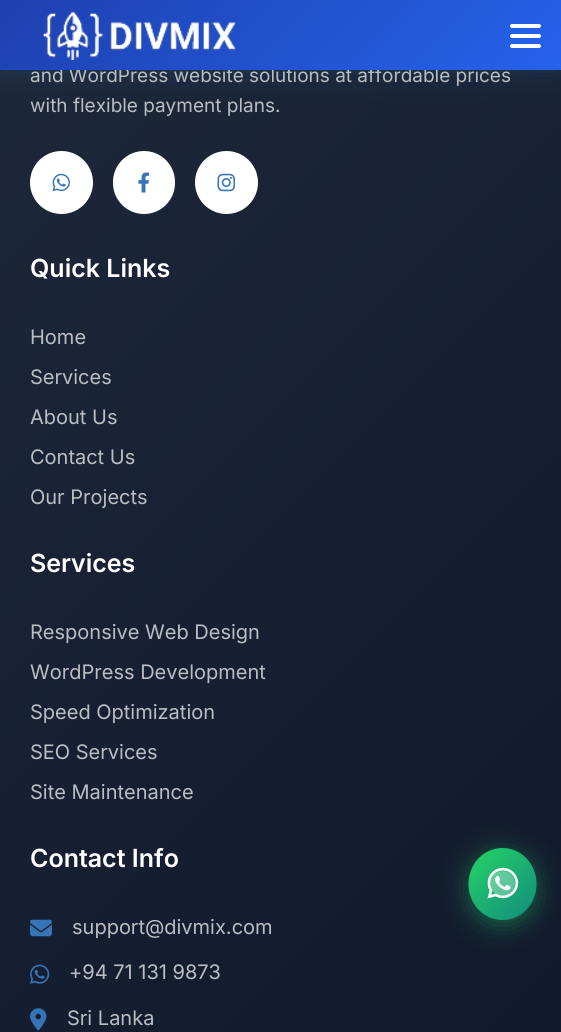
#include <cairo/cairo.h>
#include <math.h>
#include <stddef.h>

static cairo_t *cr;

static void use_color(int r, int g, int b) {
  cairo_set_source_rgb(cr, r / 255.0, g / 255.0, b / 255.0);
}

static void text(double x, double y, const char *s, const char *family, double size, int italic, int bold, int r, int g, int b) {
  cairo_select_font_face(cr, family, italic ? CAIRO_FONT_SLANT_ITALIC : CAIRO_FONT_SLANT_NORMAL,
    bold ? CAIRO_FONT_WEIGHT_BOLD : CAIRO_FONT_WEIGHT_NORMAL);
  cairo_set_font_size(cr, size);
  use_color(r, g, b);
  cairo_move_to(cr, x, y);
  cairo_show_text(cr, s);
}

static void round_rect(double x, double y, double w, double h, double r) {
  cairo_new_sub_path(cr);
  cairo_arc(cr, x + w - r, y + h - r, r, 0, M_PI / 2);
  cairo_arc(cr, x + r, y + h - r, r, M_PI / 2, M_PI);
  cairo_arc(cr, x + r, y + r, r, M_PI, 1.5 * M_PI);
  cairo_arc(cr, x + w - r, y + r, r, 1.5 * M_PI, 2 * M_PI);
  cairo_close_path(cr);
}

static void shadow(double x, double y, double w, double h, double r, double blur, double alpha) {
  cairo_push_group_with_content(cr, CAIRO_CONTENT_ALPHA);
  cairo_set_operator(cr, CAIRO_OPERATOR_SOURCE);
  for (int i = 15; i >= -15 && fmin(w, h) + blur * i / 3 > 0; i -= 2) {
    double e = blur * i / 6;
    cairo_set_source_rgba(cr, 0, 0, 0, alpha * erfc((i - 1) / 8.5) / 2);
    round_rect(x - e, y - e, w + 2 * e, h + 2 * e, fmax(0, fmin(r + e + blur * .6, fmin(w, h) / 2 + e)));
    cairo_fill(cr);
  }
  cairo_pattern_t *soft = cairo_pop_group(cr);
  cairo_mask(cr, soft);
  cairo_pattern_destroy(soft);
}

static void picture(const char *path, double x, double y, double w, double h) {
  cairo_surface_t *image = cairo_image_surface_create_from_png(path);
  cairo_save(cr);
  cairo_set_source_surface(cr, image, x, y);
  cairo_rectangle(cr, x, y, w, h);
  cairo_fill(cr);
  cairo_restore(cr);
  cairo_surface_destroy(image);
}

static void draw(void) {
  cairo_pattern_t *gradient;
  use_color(255, 255, 255);
  cairo_paint(cr);
  gradient = cairo_pattern_create_linear(-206, 86, 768, 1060);
  cairo_pattern_add_color_stop_rgba(gradient, 0, 0.118, 0.161, 0.231, 1);
  cairo_pattern_add_color_stop_rgba(gradient, 1, 0.059, 0.09, 0.165, 1);
  cairo_set_source(cr, gradient);
  cairo_pattern_destroy(gradient);
  cairo_rectangle(cr, 0, 70, 561, 962);
  cairo_fill(cr);
  use_color(54, 116, 181);
  shadow(0, 5, 561, 70, 0, 12.5, 0.2);
  use_color(255, 255, 255);
  cairo_arc(cr, 61.5, 182.5, 31.5, 0, 2 * M_PI);
  cairo_fill(cr);
  picture("img_02.png", 52, 173, 18, 19);
  round_rect(113, 151, 62, 63, 31);
  cairo_fill(cr);
  picture("img_03.png", 138, 172, 12, 21);
  cairo_arc(cr, 226.5, 182.5, 31.5, 0, 2 * M_PI);
  cairo_fill(cr);
  picture("img_04.png", 217, 173, 18, 19);
  picture("img_05.png", 30, 919, 22, 18);
  picture("img_06.png", 30, 964, 20, 20);
  picture("img_07.png", 30, 1008, 17, 23);
  use_color(37, 211, 102);
  shadow(469, 853, 67, 72, 33.5, 12.5, 0.4);
  gradient = cairo_pattern_create_linear(468, 849, 538, 919);
  cairo_pattern_add_color_stop_rgba(gradient, 0, 0.145, 0.827, 0.4, 1);
  cairo_pattern_add_color_stop_rgba(gradient, 1, 0.071, 0.549, 0.494, 1);
  cairo_set_source(cr, gradient);
  cairo_pattern_destroy(gradient);
  cairo_new_path(cr);
  cairo_move_to(cr, 502.5, 848);
  cairo_curve_to(cr, 521.5, 848, 536.5, 864, 536.5, 884);
  cairo_curve_to(cr, 536.5, 904, 521.5, 920, 502.5, 920);
  cairo_curve_to(cr, 483.5, 920, 468.5, 904, 468.5, 884);
  cairo_curve_to(cr, 468.5, 864, 483.5, 848, 502.5, 848);
  cairo_close_path(cr);
  cairo_fill(cr);
  cairo_set_source_rgba(cr, 1, 1, 1, 0.3);
  cairo_arc(cr, 502.5, 883.5, 12.5, 0, 2 * M_PI);
  cairo_fill(cr);
  picture("img_08.png", 487, 867, 32, 32);
  text(30, 82, "and WordPress website solutions at affordable prices", "Inter", 19, 0, 0, 186, 190, 195);
  gradient = cairo_pattern_create_linear(123, -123, 438, 193);
  cairo_pattern_add_color_stop_rgba(gradient, 0, 0.118, 0.251, 0.686, 1);
  cairo_pattern_add_color_stop_rgba(gradient, 1, 0.145, 0.388, 0.922, 1);
  cairo_set_source(cr, gradient);
  cairo_pattern_destroy(gradient);
  cairo_rectangle(cr, 0, 0, 561, 70);
  cairo_fill(cr);
  use_color(255, 255, 255);
  round_rect(510, 44, 31, 4, 2);
  cairo_fill(cr);
  round_rect(510, 34, 31, 4, 2);
  cairo_fill(cr);
  round_rect(510, 24, 31, 4, 2);
  cairo_fill(cr);
  picture("img_01.png", 43, 11, 194, 49);
  text(30, 112, "with flexible payment plans.", "Inter", 19, 0, 0, 186, 190, 195);
  text(30, 277, "Quick Links", "Inter SemiBold", 25, 0, 0, 255, 255, 255);
  text(30, 344, "Home", "Inter", 20, 0, 0, 186, 190, 195);
  text(30, 384, "Services", "Inter", 20, 0, 0, 186, 190, 195);
  text(30, 424, "About Us", "Inter", 20, 0, 0, 186, 190, 195);
  text(30, 464, "Contact Us", "Inter", 20, 0, 0, 186, 190, 195);
  text(30, 504, "Our Projects", "Inter", 20, 0, 0, 186, 190, 195);
  text(30, 572, "Services", "Inter SemiBold", 25, 0, 0, 255, 255, 255);
  text(30, 639, "Responsive Web Design", "Inter", 20, 0, 0, 186, 190, 195);
  text(30, 679, "WordPress Development", "Inter", 20, 0, 0, 186, 190, 195);
  text(30, 719, "Speed Optimization", "Inter", 20, 0, 0, 186, 190, 195);
  text(30, 759, "SEO Services", "Inter", 20, 0, 0, 186, 190, 195);
  text(30, 799, "Site Maintenance", "Inter", 20, 0, 0, 186, 190, 195);
  text(30, 867, "Contact Info", "Inter SemiBold", 25, 0, 0, 255, 255, 255);
  text(72, 934, "support@divmix.com", "Inter", 20, 0, 0, 186, 190, 195);
  text(69, 979, "+94 71 131 9873", "Inter", 20, 0, 0, 186, 190, 195);
  text(67, 1025, "Sri Lanka", "Inter", 20, 0, 0, 186, 190, 195);
}

int main(void) {
  cairo_surface_t *surface = cairo_image_surface_create(CAIRO_FORMAT_RGB24, 561, 1032);
  cr = cairo_create(surface);
  cairo_font_options_t *options = cairo_font_options_create();
  cairo_font_options_set_hint_metrics(options, CAIRO_HINT_METRICS_OFF);
  cairo_font_options_set_hint_style(options, CAIRO_HINT_STYLE_NONE);
  cairo_set_font_options(cr, options);
  cairo_set_miter_limit(cr, 4);
  draw();
  cairo_surface_write_to_png(surface, "out.png");
  cairo_font_options_destroy(options);
  cairo_destroy(cr);
  cairo_surface_destroy(surface);
  return 0;
}
